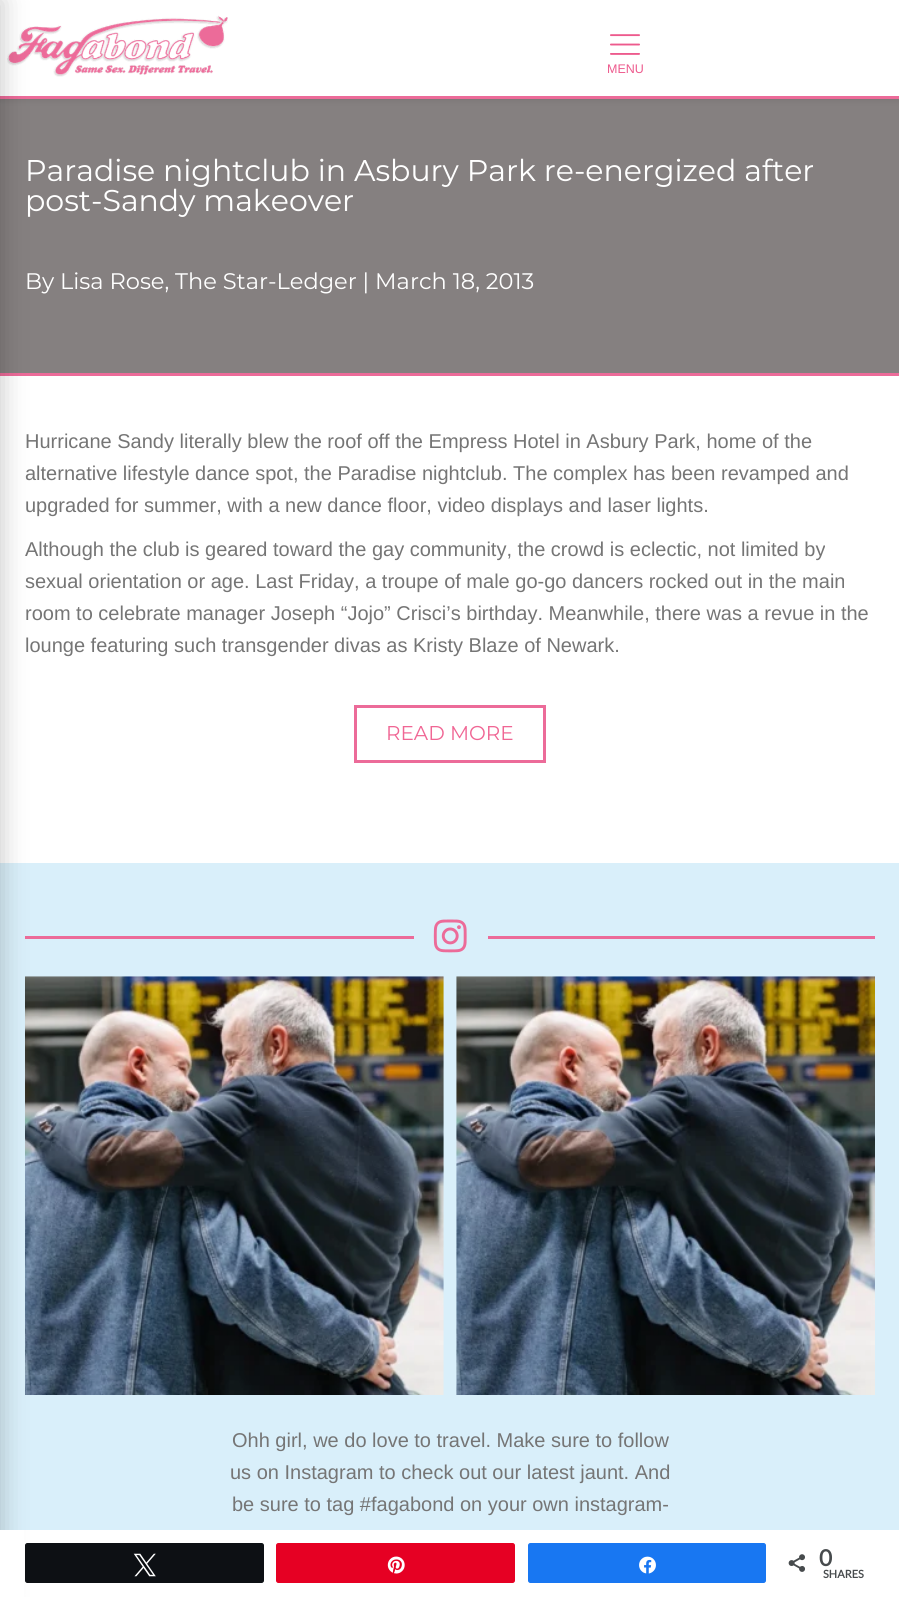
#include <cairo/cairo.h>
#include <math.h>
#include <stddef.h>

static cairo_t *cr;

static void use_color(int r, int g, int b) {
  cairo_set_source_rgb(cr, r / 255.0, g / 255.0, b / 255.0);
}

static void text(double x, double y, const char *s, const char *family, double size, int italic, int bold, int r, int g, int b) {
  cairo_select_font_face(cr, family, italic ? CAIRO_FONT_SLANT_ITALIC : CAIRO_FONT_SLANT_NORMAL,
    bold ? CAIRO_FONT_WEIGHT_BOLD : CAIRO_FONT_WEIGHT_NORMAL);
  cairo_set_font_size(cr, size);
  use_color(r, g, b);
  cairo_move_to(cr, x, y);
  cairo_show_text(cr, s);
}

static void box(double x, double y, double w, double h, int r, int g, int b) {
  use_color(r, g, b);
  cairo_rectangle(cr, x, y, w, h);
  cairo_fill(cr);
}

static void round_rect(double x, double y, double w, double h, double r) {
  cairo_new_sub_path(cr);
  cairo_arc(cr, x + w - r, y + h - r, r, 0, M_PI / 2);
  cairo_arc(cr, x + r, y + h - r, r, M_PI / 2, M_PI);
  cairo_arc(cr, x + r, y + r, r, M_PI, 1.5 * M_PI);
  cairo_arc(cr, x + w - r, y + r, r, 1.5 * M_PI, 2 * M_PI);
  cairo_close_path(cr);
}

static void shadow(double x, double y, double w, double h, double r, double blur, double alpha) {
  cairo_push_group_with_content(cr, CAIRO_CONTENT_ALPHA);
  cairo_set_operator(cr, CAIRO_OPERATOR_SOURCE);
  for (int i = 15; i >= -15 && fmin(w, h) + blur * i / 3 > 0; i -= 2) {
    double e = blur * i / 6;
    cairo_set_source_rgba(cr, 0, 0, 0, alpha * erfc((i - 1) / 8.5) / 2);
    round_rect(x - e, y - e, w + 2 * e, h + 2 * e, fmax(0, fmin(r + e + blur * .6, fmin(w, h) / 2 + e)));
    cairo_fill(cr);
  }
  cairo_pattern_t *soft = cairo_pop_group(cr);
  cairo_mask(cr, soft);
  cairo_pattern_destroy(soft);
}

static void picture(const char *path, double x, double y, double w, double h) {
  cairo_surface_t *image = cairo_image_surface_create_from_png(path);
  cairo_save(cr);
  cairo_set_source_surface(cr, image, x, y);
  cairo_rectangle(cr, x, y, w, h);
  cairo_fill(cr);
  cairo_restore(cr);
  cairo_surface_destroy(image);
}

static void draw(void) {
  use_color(255, 255, 255);
  cairo_paint(cr);
  box(0, 99, 899, 274, 133, 128, 128);
  use_color(0, 0, 0);
  shadow(0, 1, 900, 99, 0, 3, 0.1);
  box(0, 96, 899, 3, 236, 107, 153);
  box(0, 0, 899, 96, 255, 255, 255);
  picture("img_01.png", 7, 15, 221, 62);
  box(0, 373, 899, 3, 236, 107, 153);
  box(0, 863, 899, 667, 217, 239, 250);
  box(25, 936, 389, 3, 236, 107, 153);
  picture("img_04.png", 25, 976, 419, 419);
  use_color(0, 0, 0);
  shadow(-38, 0, 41, 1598, 0, 12.5, 0.2);
  picture("img_02.png", 610, 34, 30, 21);
  cairo_rectangle(cr, 355.5, 706.5, 189, 55);
  use_color(236, 107, 153);
  cairo_set_line_width(cr, 3);
  cairo_stroke(cr);
  picture("img_03.png", 433, 919, 34, 34);
  box(488, 936, 387, 3, 236, 107, 153);
  picture("img_05.png", 456, 976, 419, 419);
  box(0, 1530, 24, 67, 255, 255, 255);
  use_color(13, 16, 20);
  round_rect(25.5, 1543.5, 238, 39, 2);
  cairo_fill_preserve(cr);
  cairo_set_line_width(cr, 1);
  cairo_stroke(cr);
  picture("img_06.png", 133, 1553, 23, 24);
  use_color(230, 0, 35);
  round_rect(276.5, 1543.5, 238, 39, 2);
  cairo_fill_preserve(cr);
  cairo_stroke(cr);
  picture("img_07.png", 387, 1556, 18, 18);
  use_color(24, 119, 242);
  round_rect(528.5, 1543.5, 237, 39, 2);
  cairo_fill_preserve(cr);
  cairo_stroke(cr);
  picture("img_08.png", 639, 1556, 17, 18);
  picture("img_09.png", 788, 1554, 17, 18);
  text(607, 73, "MENU", "Liberation Sans", 12.5, 0, 0, 237, 90, 141);
  text(25, 181, "Paradise nightclub in Asbury Park re-energized after", "Montserrat Thin", 30, 0, 0, 255, 255, 255);
  text(25, 211, "post-Sandy makeover", "Montserrat Thin", 30, 0, 0, 255, 255, 255);
  text(25, 289, "By Lisa Rose, The Star-Ledger | March 18, 2013", "Montserrat Thin", 22.5, 0, 0, 255, 255, 255);
  text(25, 448, "Hurricane Sandy literally blew the roof off the Empress Hotel in Asbury Park, home of the", "Liberation Sans", 20, 0, 0, 117, 117, 117);
  text(25, 480, "alternative lifestyle dance spot, the Paradise nightclub. The complex has been revamped and", "Liberation Sans", 20, 0, 0, 117, 117, 117);
  text(25, 512, "upgraded for summer, with a new dance floor, video displays and laser lights.", "Liberation Sans", 20, 0, 0, 117, 117, 117);
  text(25, 556, "Although the club is geared toward the gay community, the crowd is eclectic, not limited by", "Liberation Sans", 20, 0, 0, 117, 117, 117);
  text(25, 588, "sexual orientation or age. Last Friday, a troupe of male go-go dancers rocked out in the main", "Liberation Sans", 20, 0, 0, 117, 117, 117);
  text(25, 620, "room to celebrate manager Joseph “Jojo” Crisci’s birthday. Meanwhile, there was a revue in the", "Liberation Sans", 20, 0, 0, 117, 117, 117);
  text(25, 652, "lounge featuring such transgender divas as Kristy Blaze of Newark.", "Liberation Sans", 20, 0, 0, 117, 117, 117);
  text(386, 740, "READ MORE", "Montserrat Thin", 20, 0, 0, 240, 102, 148);
  text(232, 1447, "Ohh girl, we do love to travel. Make sure to follow", "Liberation Sans", 20, 0, 0, 117, 117, 117);
  text(230, 1479, "us on Instagram to check out our latest jaunt. And", "Liberation Sans", 20, 0, 0, 117, 117, 117);
  text(232, 1511, "be sure to tag #fagabond on your own instagram-", "Liberation Sans", 20, 0, 0, 117, 117, 117);
  text(819, 1566, "0", "Lato", 22.5, 0, 1, 71, 75, 77);
  text(823, 1578, "SHARES", "Lato", 11, 0, 1, 71, 75, 77);
}

int main(void) {
  cairo_surface_t *surface = cairo_image_surface_create(CAIRO_FORMAT_RGB24, 899, 1597);
  cr = cairo_create(surface);
  cairo_font_options_t *options = cairo_font_options_create();
  cairo_font_options_set_hint_metrics(options, CAIRO_HINT_METRICS_OFF);
  cairo_font_options_set_hint_style(options, CAIRO_HINT_STYLE_NONE);
  cairo_set_font_options(cr, options);
  cairo_set_miter_limit(cr, 4);
  draw();
  cairo_surface_write_to_png(surface, "out.png");
  cairo_font_options_destroy(options);
  cairo_destroy(cr);
  cairo_surface_destroy(surface);
  return 0;
}
